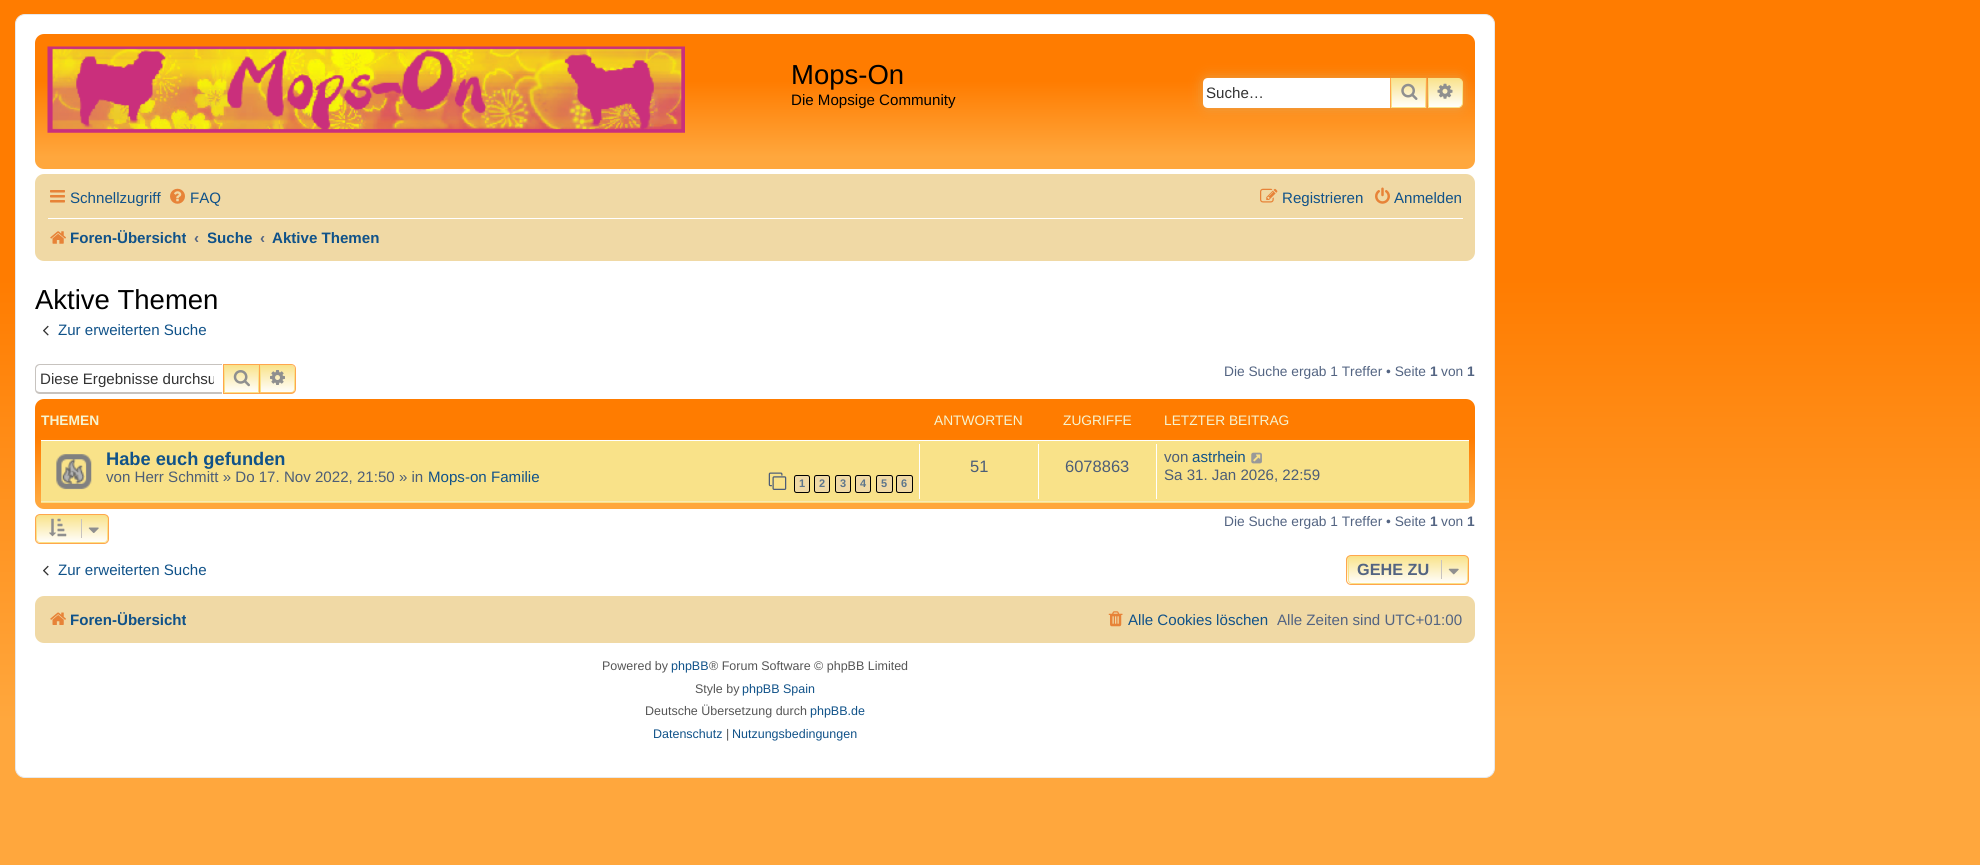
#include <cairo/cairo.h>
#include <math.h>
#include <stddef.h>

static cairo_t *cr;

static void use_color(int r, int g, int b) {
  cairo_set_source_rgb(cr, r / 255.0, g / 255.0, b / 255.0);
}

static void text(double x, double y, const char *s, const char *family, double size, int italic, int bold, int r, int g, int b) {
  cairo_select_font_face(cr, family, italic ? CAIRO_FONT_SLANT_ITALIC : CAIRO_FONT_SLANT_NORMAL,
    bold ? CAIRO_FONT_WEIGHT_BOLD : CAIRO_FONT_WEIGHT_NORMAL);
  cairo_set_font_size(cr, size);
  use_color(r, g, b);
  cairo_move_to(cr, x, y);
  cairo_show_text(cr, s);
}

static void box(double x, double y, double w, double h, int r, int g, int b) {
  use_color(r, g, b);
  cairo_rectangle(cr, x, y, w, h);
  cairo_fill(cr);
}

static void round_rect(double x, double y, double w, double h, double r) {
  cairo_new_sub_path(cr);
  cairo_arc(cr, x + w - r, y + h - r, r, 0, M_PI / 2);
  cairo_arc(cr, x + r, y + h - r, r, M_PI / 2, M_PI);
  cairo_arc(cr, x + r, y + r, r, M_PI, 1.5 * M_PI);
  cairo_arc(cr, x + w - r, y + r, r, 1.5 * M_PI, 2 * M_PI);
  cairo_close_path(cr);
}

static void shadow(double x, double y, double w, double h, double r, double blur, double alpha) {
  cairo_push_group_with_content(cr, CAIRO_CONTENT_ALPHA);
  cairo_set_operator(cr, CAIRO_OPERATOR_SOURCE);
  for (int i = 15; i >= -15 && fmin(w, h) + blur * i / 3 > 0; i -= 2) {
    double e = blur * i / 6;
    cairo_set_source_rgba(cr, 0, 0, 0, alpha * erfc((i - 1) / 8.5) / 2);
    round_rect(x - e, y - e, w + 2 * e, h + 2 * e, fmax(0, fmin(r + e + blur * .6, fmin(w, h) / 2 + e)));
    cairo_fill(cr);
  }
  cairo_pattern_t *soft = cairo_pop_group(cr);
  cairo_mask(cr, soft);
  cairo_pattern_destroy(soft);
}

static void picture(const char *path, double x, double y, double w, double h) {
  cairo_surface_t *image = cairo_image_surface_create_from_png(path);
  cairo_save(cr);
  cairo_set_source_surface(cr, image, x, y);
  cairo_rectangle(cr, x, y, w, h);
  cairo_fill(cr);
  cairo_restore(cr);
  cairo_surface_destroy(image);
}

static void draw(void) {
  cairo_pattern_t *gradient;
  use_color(255, 255, 255);
  cairo_paint(cr);
  gradient = cairo_pattern_create_linear(990, -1.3, 990, 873);
  cairo_pattern_add_color_stop_rgba(gradient, 0, 1, 0.718, 0.42, 1);
  cairo_pattern_add_color_stop_rgba(gradient, 0, 1, 0.486, 0, 1);
  cairo_pattern_add_color_stop_rgba(gradient, 0.35, 1, 0.486, 0, 1);
  cairo_pattern_add_color_stop_rgba(gradient, 0.91, 1, 0.655, 0.239, 1);
  cairo_pattern_add_color_stop_rgba(gradient, 1, 1, 0.655, 0.239, 1);
  cairo_pattern_add_color_stop_rgba(gradient, 1, 1, 0.498, 0.016, 1);
  cairo_pattern_add_color_stop_rgba(gradient, 1, 1, 0.655, 0.239, 1);
  cairo_set_source(cr, gradient);
  cairo_pattern_destroy(gradient);
  cairo_rectangle(cr, 0, 793, 1980, 72);
  cairo_fill(cr);
  gradient = cairo_pattern_create_linear(990, -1.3, 990, 793);
  cairo_pattern_add_color_stop_rgba(gradient, 0, 1, 0.718, 0.42, 1);
  cairo_pattern_add_color_stop_rgba(gradient, 0, 1, 0.486, 0, 1);
  cairo_pattern_add_color_stop_rgba(gradient, 0.35, 1, 0.486, 0, 1);
  cairo_pattern_add_color_stop_rgba(gradient, 0.91, 1, 0.655, 0.239, 1);
  cairo_pattern_add_color_stop_rgba(gradient, 1, 1, 0.655, 0.239, 1);
  cairo_pattern_add_color_stop_rgba(gradient, 1, 1, 0.498, 0.016, 1);
  cairo_pattern_add_color_stop_rgba(gradient, 1, 1, 0.655, 0.239, 1);
  cairo_set_source(cr, gradient);
  cairo_pattern_destroy(gradient);
  cairo_rectangle(cr, 0, 0, 1980, 793);
  cairo_fill(cr);
  use_color(255, 255, 255);
  round_rect(15.5, 14.5, 1479, 763, 9.5);
  cairo_fill_preserve(cr);
  use_color(230, 233, 237);
  cairo_set_line_width(cr, 1);
  cairo_stroke(cr);
  gradient = cairo_pattern_create_linear(755, 34, 755, 169);
  cairo_pattern_add_color_stop_rgba(gradient, 0, 1, 0.718, 0.42, 1);
  cairo_pattern_add_color_stop_rgba(gradient, 0, 1, 0.486, 0, 1);
  cairo_pattern_add_color_stop_rgba(gradient, 0.35, 1, 0.486, 0, 1);
  cairo_pattern_add_color_stop_rgba(gradient, 0.91, 1, 0.655, 0.239, 1);
  cairo_pattern_add_color_stop_rgba(gradient, 1, 1, 0.655, 0.239, 1);
  cairo_pattern_add_color_stop_rgba(gradient, 1, 1, 0.498, 0.016, 1);
  cairo_pattern_add_color_stop_rgba(gradient, 1, 1, 0.655, 0.239, 1);
  cairo_set_source(cr, gradient);
  cairo_pattern_destroy(gradient);
  round_rect(35, 34, 1440, 135, 9);
  cairo_fill(cr);
  picture("img_01.png", 47, 46, 638, 87);
  use_color(233, 162, 77);
  shadow(1203, 78, 260, 30, 5, 6, 1);
  use_color(255, 255, 255);
  cairo_new_path(cr);
  cairo_move_to(cr, 1208, 78);
  cairo_line_to(cr, 1390, 78);
  cairo_line_to(cr, 1390, 108);
  cairo_line_to(cr, 1208, 108);
  cairo_curve_to(cr, 1205, 108, 1203, 106, 1203, 103);
  cairo_line_to(cr, 1203, 83);
  cairo_curve_to(cr, 1203, 80, 1205, 78, 1208, 78);
  cairo_close_path(cr);
  cairo_fill(cr);
  gradient = cairo_pattern_create_linear(1409, 78, 1409, 108);
  cairo_pattern_add_color_stop_rgba(gradient, 0, 0.976, 0.886, 0.537, 1);
  cairo_pattern_add_color_stop_rgba(gradient, 1, 1, 1, 1, 1);
  cairo_set_source(cr, gradient);
  cairo_pattern_destroy(gradient);
  cairo_rectangle(cr, 1392, 79, 33, 28);
  cairo_fill(cr);
  cairo_rectangle(cr, 1391.5, 78.5, 34, 29);
  use_color(249, 226, 137);
  cairo_stroke(cr);
  box(1426, 78, 1, 30, 255, 166, 77);
  box(1390, 78, 1, 30, 255, 166, 77);
  picture("img_02.png", 1401, 83, 17, 17);
  gradient = cairo_pattern_create_linear(1445, 78, 1445, 108);
  cairo_pattern_add_color_stop_rgba(gradient, 0, 0.976, 0.886, 0.537, 1);
  cairo_pattern_add_color_stop_rgba(gradient, 1, 1, 1, 1, 1);
  cairo_set_source(cr, gradient);
  cairo_pattern_destroy(gradient);
  cairo_new_path(cr);
  cairo_move_to(cr, 1428.5, 78.5);
  cairo_line_to(cr, 1458, 78.5);
  cairo_curve_to(cr, 1460.5, 78.5, 1462.5, 80.5, 1462.5, 83);
  cairo_line_to(cr, 1462.5, 103);
  cairo_curve_to(cr, 1462.5, 105.5, 1460.5, 107.5, 1458, 107.5);
  cairo_line_to(cr, 1428.5, 107.5);
  cairo_close_path(cr);
  cairo_fill_preserve(cr);
  use_color(249, 226, 137);
  cairo_stroke(cr);
  picture("img_03.png", 1437, 83, 16, 16);
  use_color(240, 217, 165);
  round_rect(35, 174, 1440, 87, 9);
  cairo_fill(cr);
  picture("img_04.png", 50, 190, 15, 13);
  picture("img_05.png", 170, 188, 15, 16);
  picture("img_06.png", 1260, 188, 18, 15);
  picture("img_07.png", 1375, 187, 15, 17);
  box(48, 218, 1415, 1, 255, 255, 255);
  picture("img_08.png", 50, 231, 16, 13);
  picture("img_09.png", 43, 325, 6, 11);
  use_color(199, 195, 191);
  cairo_set_fill_rule(cr, CAIRO_FILL_RULE_EVEN_ODD);
  cairo_new_path(cr);
  cairo_move_to(cr, 40, 364);
  cairo_line_to(cr, 222, 364);
  cairo_line_to(cr, 222, 394);
  cairo_line_to(cr, 40, 394);
  cairo_curve_to(cr, 37, 394, 35, 392, 35, 389);
  cairo_line_to(cr, 35, 369);
  cairo_curve_to(cr, 35, 366, 37, 364, 40, 364);
  cairo_close_path(cr);
  cairo_move_to(cr, 40, 365);
  cairo_line_to(cr, 222, 365);
  cairo_line_to(cr, 222, 392);
  cairo_line_to(cr, 40, 392);
  cairo_curve_to(cr, 38, 392, 36, 391, 36, 389);
  cairo_line_to(cr, 36, 369);
  cairo_curve_to(cr, 36, 367, 38, 365, 40, 365);
  cairo_close_path(cr);
  cairo_fill(cr);
  gradient = cairo_pattern_create_linear(241, 365, 241, 393);
  cairo_pattern_add_color_stop_rgba(gradient, 0, 0.976, 0.886, 0.537, 1);
  cairo_pattern_add_color_stop_rgba(gradient, 1, 1, 1, 1, 1);
  cairo_set_source(cr, gradient);
  cairo_pattern_destroy(gradient);
  cairo_rectangle(cr, 225, 366, 33, 26);
  cairo_fill(cr);
  cairo_rectangle(cr, 224.5, 365.5, 34, 27);
  use_color(249, 226, 137);
  cairo_stroke(cr);
  cairo_rectangle(cr, 223.5, 364.5, 36, 29);
  use_color(255, 166, 77);
  cairo_stroke(cr);
  picture("img_10.png", 233, 370, 17, 17);
  gradient = cairo_pattern_create_linear(278, 365, 278, 393);
  cairo_pattern_add_color_stop_rgba(gradient, 0, 0.976, 0.886, 0.537, 1);
  cairo_pattern_add_color_stop_rgba(gradient, 1, 1, 1, 1, 1);
  cairo_set_source(cr, gradient);
  cairo_pattern_destroy(gradient);
  cairo_new_path(cr);
  cairo_move_to(cr, 260.5, 365.5);
  cairo_line_to(cr, 291, 365.5);
  cairo_curve_to(cr, 293, 365.5, 294.5, 367, 294.5, 369);
  cairo_line_to(cr, 294.5, 389);
  cairo_curve_to(cr, 294.5, 391, 293, 392.5, 291, 392.5);
  cairo_line_to(cr, 260.5, 392.5);
  cairo_close_path(cr);
  cairo_fill_preserve(cr);
  use_color(249, 226, 137);
  cairo_stroke(cr);
  use_color(255, 166, 77);
  cairo_new_path(cr);
  cairo_move_to(cr, 260, 364);
  cairo_line_to(cr, 291, 364);
  cairo_curve_to(cr, 294, 364, 296, 366, 296, 369);
  cairo_line_to(cr, 296, 389);
  cairo_curve_to(cr, 296, 391.5, 294, 394, 291, 394);
  cairo_line_to(cr, 260, 394);
  cairo_close_path(cr);
  cairo_move_to(cr, 260, 365);
  cairo_line_to(cr, 291, 365);
  cairo_curve_to(cr, 293.5, 365, 295, 366.5, 295, 369);
  cairo_line_to(cr, 295, 389);
  cairo_curve_to(cr, 295, 391, 293.5, 392.5, 291, 392.5);
  cairo_line_to(cr, 260, 392.5);
  cairo_close_path(cr);
  cairo_fill(cr);
  picture("img_11.png", 270, 370, 15, 15);
  gradient = cairo_pattern_create_linear(755, 399, 755, 509);
  cairo_pattern_add_color_stop_rgba(gradient, 0, 1, 0.718, 0.42, 1);
  cairo_pattern_add_color_stop_rgba(gradient, 0, 1, 0.486, 0, 1);
  cairo_pattern_add_color_stop_rgba(gradient, 0.35, 1, 0.486, 0, 1);
  cairo_pattern_add_color_stop_rgba(gradient, 0.91, 1, 0.655, 0.239, 1);
  cairo_pattern_add_color_stop_rgba(gradient, 1, 1, 0.655, 0.239, 1);
  cairo_pattern_add_color_stop_rgba(gradient, 1, 1, 0.498, 0.016, 1);
  cairo_pattern_add_color_stop_rgba(gradient, 1, 1, 0.655, 0.239, 1);
  cairo_set_source(cr, gradient);
  cairo_pattern_destroy(gradient);
  round_rect(35, 399, 1440, 110, 9);
  cairo_fill(cr);
  box(41, 441, 1428, 62, 249, 226, 137);
  box(41, 440, 1428, 1, 255, 255, 255);
  box(41, 501, 1428, 1, 249, 235, 183);
  picture("img_12.png", 56, 454, 36, 36);
  picture("img_13.png", 768, 472, 19, 18);
  use_color(240, 217, 165);
  round_rect(794.5, 475.5, 15, 17, 2);
  cairo_fill_preserve(cr);
  use_color(0, 0, 0);
  cairo_stroke(cr);
  use_color(240, 217, 165);
  round_rect(814.5, 475.5, 15, 17, 2);
  cairo_fill_preserve(cr);
  use_color(0, 0, 0);
  cairo_stroke(cr);
  use_color(240, 217, 165);
  round_rect(835.5, 475.5, 15, 17, 2);
  cairo_fill_preserve(cr);
  use_color(0, 0, 0);
  cairo_stroke(cr);
  use_color(240, 217, 165);
  round_rect(855.5, 475.5, 15, 17, 2);
  cairo_fill_preserve(cr);
  use_color(0, 0, 0);
  cairo_stroke(cr);
  use_color(240, 217, 165);
  round_rect(876.5, 475.5, 16, 17, 2);
  cairo_fill_preserve(cr);
  use_color(0, 0, 0);
  cairo_stroke(cr);
  use_color(240, 217, 165);
  round_rect(896.5, 475.5, 16, 17, 2);
  cairo_fill_preserve(cr);
  use_color(0, 0, 0);
  cairo_stroke(cr);
  box(919, 444, 1, 55, 255, 255, 255);
  box(1038, 444, 1, 55, 255, 255, 255);
  box(1156, 444, 1, 55, 255, 255, 255);
  picture("img_14.png", 1251, 452, 11, 12);
  cairo_save(cr);
  cairo_set_fill_rule(cr, CAIRO_FILL_RULE_WINDING);
  round_rect(35, 514, 74, 30, 5);
  cairo_clip(cr);
  gradient = cairo_pattern_create_linear(72, 515, 72, 543);
  cairo_pattern_add_color_stop_rgba(gradient, 0, 0.976, 0.886, 0.537, 1);
  cairo_pattern_add_color_stop_rgba(gradient, 1, 1, 1, 1, 1);
  cairo_set_source(cr, gradient);
  cairo_pattern_destroy(gradient);
  cairo_rectangle(cr, 35, 515, 74, 28);
  cairo_fill(cr);
  cairo_restore(cr);
  round_rect(36.5, 515.5, 71, 27, 3.5);
  use_color(249, 226, 137);
  cairo_stroke(cr);
  round_rect(35.5, 514.5, 73, 29, 4.5);
  use_color(255, 166, 77);
  cairo_stroke(cr);
  picture("img_15.png", 49, 518, 18, 19);
  box(81, 519, 1, 19, 199, 195, 191);
  picture("img_16.png", 88, 527, 11, 6);
  picture("img_09.png", 43, 565, 6, 11);
  cairo_save(cr);
  cairo_set_fill_rule(cr, CAIRO_FILL_RULE_WINDING);
  round_rect(1346, 555, 123, 30, 5);
  cairo_clip(cr);
  gradient = cairo_pattern_create_linear(1408, 556, 1408, 584);
  cairo_pattern_add_color_stop_rgba(gradient, 0, 0.976, 0.886, 0.537, 1);
  cairo_pattern_add_color_stop_rgba(gradient, 1, 1, 1, 1, 1);
  cairo_set_source(cr, gradient);
  cairo_pattern_destroy(gradient);
  cairo_rectangle(cr, 1346, 556, 123, 28);
  cairo_fill(cr);
  cairo_restore(cr);
  round_rect(1348.5, 556.5, 119, 27, 3.5);
  use_color(249, 226, 137);
  cairo_stroke(cr);
  round_rect(1346.5, 555.5, 122, 29, 4.5);
  use_color(255, 166, 77);
  cairo_stroke(cr);
  box(1441, 560, 1, 19, 199, 195, 191);
  picture("img_17.png", 1448, 568, 11, 7);
  use_color(240, 217, 165);
  round_rect(35, 596, 1440, 47, 9);
  cairo_fill(cr);
  picture("img_18.png", 50, 612, 16, 13);
  picture("img_19.png", 1108, 611, 15, 16);
  text(791, 84, "Mops-On", "Liberation Sans", 27.5, 0, 0, 0, 0, 0);
  text(791, 105, "Die Mopsige Community", "Liberation Sans", 15.1, 0, 0, 0, 0, 0);
  text(1206, 98, "Suche…", "Liberation Sans", 15.1, 0, 0, 51, 51, 51);
  text(70, 203, "Schnellzugriff", "Liberation Sans", 15.1, 0, 0, 16, 82, 137);
  text(190, 203, "FAQ", "Liberation Sans", 15.1, 0, 0, 16, 82, 137);
  text(1282, 203, "Registrieren", "Liberation Sans", 15.1, 0, 0, 16, 82, 137);
  text(1394, 203, "Anmelden", "Liberation Sans", 15.1, 0, 0, 16, 82, 137);
  cairo_save(cr);
  cairo_set_fill_rule(cr, CAIRO_FILL_RULE_WINDING);
  cairo_rectangle(cr, 48, 223, 138, 32);
  cairo_clip(cr);
  text(70, 243, "Foren-Übersicht", "Liberation Sans", 15.1, 0, 1, 16, 82, 137);
  cairo_restore(cr);
  text(194, 243, "‹", "Liberation Sans", 15.1, 0, 1, 83, 100, 130);
  cairo_save(cr);
  cairo_set_fill_rule(cr, CAIRO_FILL_RULE_WINDING);
  cairo_rectangle(cr, 208, 223, 45, 32);
  cairo_clip(cr);
  text(207, 243, "Suche", "Liberation Sans", 15.1, 0, 1, 16, 82, 137);
  cairo_restore(cr);
  text(260, 243, "‹", "Liberation Sans", 15.1, 0, 1, 83, 100, 130);
  text(272, 243, "Aktive Themen", "Liberation Sans", 15.1, 0, 1, 16, 82, 137);
  text(35, 309, "Aktive Themen", "Liberation Sans", 27.5, 0, 0, 0, 0, 0);
  text(58, 335, "Zur erweiterten Suche", "Liberation Sans", 15.1, 0, 0, 16, 82, 137);
  cairo_save(cr);
  cairo_set_fill_rule(cr, CAIRO_FILL_RULE_WINDING);
  cairo_rectangle(cr, 40, 370, 174, 18);
  cairo_clip(cr);
  text(40, 384, "Diese Ergebnisse durchsu", "Liberation Sans", 15.1, 0, 0, 51, 51, 51);
  cairo_restore(cr);
  text(1224, 376, "Die Suche ergab 1 Treffer • Seite", "Liberation Sans", 13.75, 0, 0, 83, 100, 130);
  text(1430, 376, "1", "Liberation Sans", 13.75, 0, 1, 83, 100, 130);
  text(1441, 376, "von", "Liberation Sans", 13.75, 0, 0, 83, 100, 130);
  text(1467, 376, "1", "Liberation Sans", 13.75, 0, 1, 83, 100, 130);
  text(41, 425, "THEMEN", "Liberation Sans", 13.75, 0, 1, 246, 244, 208);
  text(934, 425, "ANTWORTEN", "Liberation Sans", 13.75, 0, 0, 246, 244, 208);
  text(1063, 425, "ZUGRIFFE", "Liberation Sans", 13.75, 0, 0, 246, 244, 208);
  text(1164, 425, "LETZTER BEITRAG", "Liberation Sans", 13.75, 0, 0, 246, 244, 208);
  text(106, 465, "Habe euch gefunden", "Liberation Sans", 18.25, 0, 1, 16, 82, 137);
  text(106, 482, "von Herr Schmitt » Do 17. Nov 2022, 21:50 » in", "Liberation Sans", 15.1, 0, 0, 76, 93, 119);
  text(428, 482, "Mops-on Familie", "Liberation Sans", 15.1, 0, 0, 16, 82, 137);
  text(799, 487, "1", "Liberation Sans", 11, 0, 1, 92, 117, 140);
  text(819, 487, "2", "Liberation Sans", 11, 0, 1, 92, 117, 140);
  text(840, 487, "3", "Liberation Sans", 11, 0, 1, 92, 117, 140);
  text(860, 487, "4", "Liberation Sans", 11, 0, 1, 92, 117, 140);
  text(881, 487, "5", "Liberation Sans", 11, 0, 1, 92, 117, 140);
  text(901, 487, "6", "Liberation Sans", 11, 0, 1, 92, 117, 140);
  text(970, 472, "51", "Liberation Sans", 16.5, 0, 0, 76, 93, 119);
  text(1065, 472, "6078863", "Liberation Sans", 16.5, 0, 0, 76, 93, 119);
  text(1164, 462, "von", "Liberation Sans", 15.1, 0, 0, 76, 93, 119);
  text(1192, 462, "astrhein", "Liberation Sans", 15.1, 0, 0, 16, 82, 137);
  text(1164, 480, "Sa 31. Jan 2026, 22:59", "Liberation Sans", 15.1, 0, 0, 76, 93, 119);
  text(1224, 526, "Die Suche ergab 1 Treffer • Seite", "Liberation Sans", 13.75, 0, 0, 83, 100, 130);
  text(1430, 526, "1", "Liberation Sans", 13.75, 0, 1, 83, 100, 130);
  text(1441, 526, "von", "Liberation Sans", 13.75, 0, 0, 83, 100, 130);
  text(1467, 526, "1", "Liberation Sans", 13.75, 0, 1, 83, 100, 130);
  text(58, 575, "Zur erweiterten Suche", "Liberation Sans", 15.1, 0, 0, 16, 82, 137);
  text(1357, 575, "GEHE ZU", "Liberation Sans", 16.25, 0, 1, 83, 100, 130);
  cairo_save(cr);
  cairo_set_fill_rule(cr, CAIRO_FILL_RULE_WINDING);
  cairo_rectangle(cr, 48, 604, 138, 32);
  cairo_clip(cr);
  text(70, 625, "Foren-Übersicht", "Liberation Sans", 15.1, 0, 1, 16, 82, 137);
  cairo_restore(cr);
  text(1128, 625, "Alle Cookies löschen", "Liberation Sans", 15.1, 0, 0, 16, 82, 137);
  text(1277, 625, "Alle Zeiten sind UTC+01:00", "Liberation Sans", 15.1, 0, 0, 83, 100, 130);
  text(602, 670, "Powered by", "Liberation Sans", 12.5, 0, 0, 85, 85, 85);
  text(671, 670, "phpBB", "Liberation Sans", 12.5, 0, 0, 16, 82, 137);
  text(709, 670, "® Forum Software © phpBB Limited", "Liberation Sans", 12.5, 0, 0, 85, 85, 85);
  text(695, 693, "Style by", "Liberation Sans", 12.5, 0, 0, 85, 85, 85);
  text(742, 693, "phpBB Spain", "Liberation Sans", 12.5, 0, 0, 16, 82, 137);
  text(645, 715, "Deutsche Übersetzung durch", "Liberation Sans", 12.5, 0, 0, 85, 85, 85);
  text(810, 715, "phpBB.de", "Liberation Sans", 12.5, 0, 0, 16, 82, 137);
  text(653, 738, "Datenschutz", "Liberation Sans", 12.5, 0, 0, 16, 82, 137);
  text(726, 738, "|", "Liberation Sans", 12.5, 0, 0, 85, 85, 85);
  text(732, 738, "Nutzungsbedingungen", "Liberation Sans", 12.5, 0, 0, 16, 82, 137);
}

int main(void) {
  cairo_surface_t *surface = cairo_image_surface_create(CAIRO_FORMAT_RGB24, 1980, 865);
  cr = cairo_create(surface);
  cairo_font_options_t *options = cairo_font_options_create();
  cairo_font_options_set_hint_metrics(options, CAIRO_HINT_METRICS_OFF);
  cairo_font_options_set_hint_style(options, CAIRO_HINT_STYLE_NONE);
  cairo_set_font_options(cr, options);
  cairo_set_miter_limit(cr, 4);
  draw();
  cairo_surface_write_to_png(surface, "out.png");
  cairo_font_options_destroy(options);
  cairo_destroy(cr);
  cairo_surface_destroy(surface);
  return 0;
}
